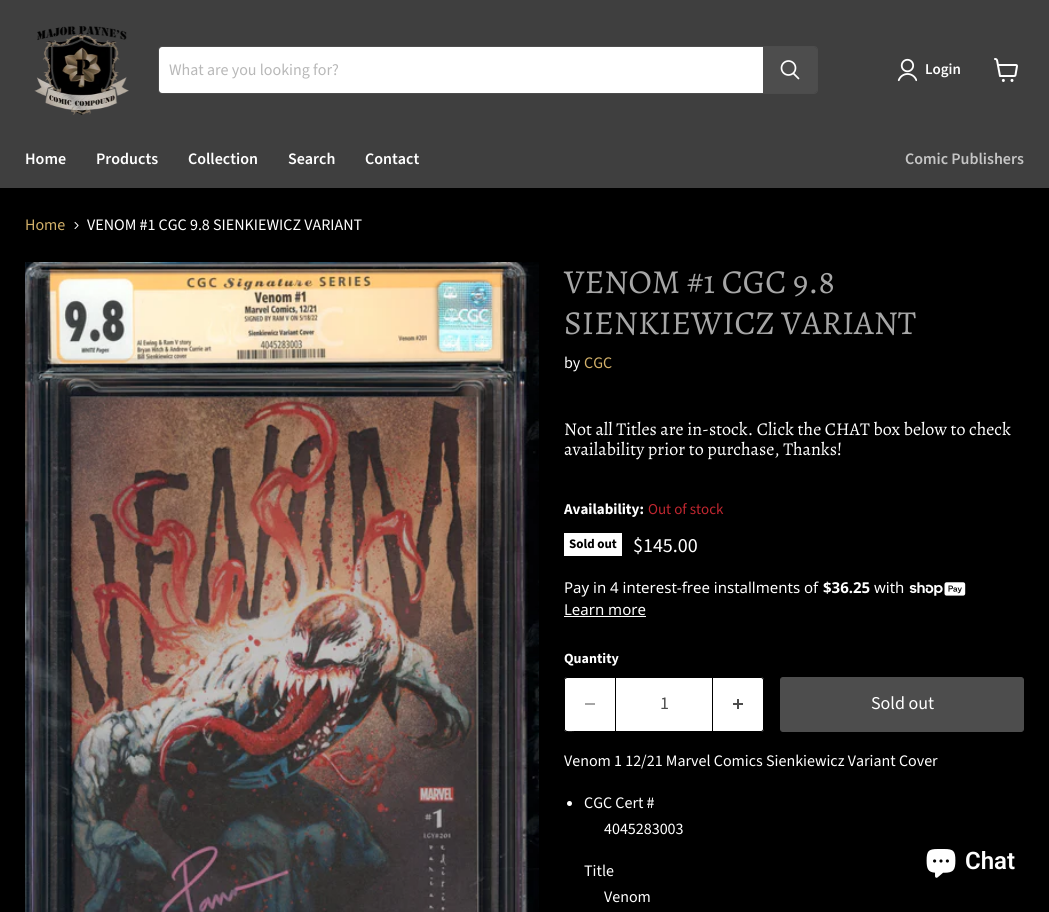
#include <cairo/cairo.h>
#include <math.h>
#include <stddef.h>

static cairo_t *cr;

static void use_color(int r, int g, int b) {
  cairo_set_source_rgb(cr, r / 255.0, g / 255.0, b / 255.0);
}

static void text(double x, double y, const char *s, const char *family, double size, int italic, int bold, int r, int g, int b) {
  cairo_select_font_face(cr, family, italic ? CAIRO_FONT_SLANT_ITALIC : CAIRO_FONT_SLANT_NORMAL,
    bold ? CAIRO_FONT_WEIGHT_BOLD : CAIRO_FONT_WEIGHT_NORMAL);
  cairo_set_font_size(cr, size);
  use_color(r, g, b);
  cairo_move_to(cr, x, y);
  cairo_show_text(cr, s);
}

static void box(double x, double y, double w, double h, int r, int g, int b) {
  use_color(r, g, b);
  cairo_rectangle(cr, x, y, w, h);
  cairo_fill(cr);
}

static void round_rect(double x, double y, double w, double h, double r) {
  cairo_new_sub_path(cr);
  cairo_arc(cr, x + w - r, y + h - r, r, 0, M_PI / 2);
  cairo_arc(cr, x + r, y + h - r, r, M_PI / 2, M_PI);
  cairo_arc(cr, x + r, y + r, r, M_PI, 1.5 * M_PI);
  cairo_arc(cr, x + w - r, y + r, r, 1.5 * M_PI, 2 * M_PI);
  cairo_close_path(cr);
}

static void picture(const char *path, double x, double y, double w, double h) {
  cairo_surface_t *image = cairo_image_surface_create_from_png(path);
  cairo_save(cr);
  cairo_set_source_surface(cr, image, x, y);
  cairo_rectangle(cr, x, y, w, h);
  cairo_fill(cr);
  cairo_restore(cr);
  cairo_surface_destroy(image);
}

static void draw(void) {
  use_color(0, 0, 0);
  cairo_paint(cr);
  box(0, 0, 1049, 188, 63, 63, 63);
  picture("img_01.png", 34, 26, 95, 89);
  round_rect(158.5, 46.5, 659, 47, 3.5);
  use_color(76, 76, 76);
  cairo_set_line_width(cr, 1);
  cairo_stroke(cr);
  use_color(255, 255, 255);
  cairo_new_path(cr);
  cairo_move_to(cr, 162, 47);
  cairo_line_to(cr, 763, 47);
  cairo_line_to(cr, 763, 93);
  cairo_line_to(cr, 162, 93);
  cairo_curve_to(cr, 160.5, 93, 159, 91.5, 159, 90);
  cairo_line_to(cr, 159, 50);
  cairo_curve_to(cr, 159, 48.5, 160.5, 47, 162, 47);
  cairo_close_path(cr);
  cairo_fill(cr);
  use_color(77, 77, 77);
  cairo_new_path(cr);
  cairo_move_to(cr, 763, 47);
  cairo_line_to(cr, 814, 47);
  cairo_curve_to(cr, 815.5, 47, 817, 48.5, 817, 50);
  cairo_line_to(cr, 817, 90);
  cairo_curve_to(cr, 817, 91.5, 815.5, 93, 814, 93);
  cairo_line_to(cr, 763, 93);
  cairo_close_path(cr);
  cairo_fill(cr);
  cairo_new_path(cr);
  cairo_move_to(cr, 798.5, 78.5);
  cairo_line_to(cr, 793.5, 73.5);
  use_color(255, 255, 255);
  cairo_set_line_width(cr, 1.7);
  cairo_set_line_cap(cr, CAIRO_LINE_CAP_ROUND);
  cairo_stroke(cr);
  cairo_arc(cr, 788.5, 68, 7, 0, 2 * M_PI);
  cairo_set_line_cap(cr, CAIRO_LINE_CAP_BUTT);
  cairo_stroke(cr);
  picture("img_02.png", 897, 58, 20, 24);
  picture("img_03.png", 994, 58, 24, 24);
  picture("img_04.png", 74, 221, 5, 8);
  picture("img_05.png", 25, 262, 514, 650);
  box(564, 533, 58, 23, 255, 255, 255);
  picture("img_06.png", 909, 582, 57, 14);
  box(564, 616, 82, 1, 255, 255, 255);
  cairo_new_path(cr);
  cairo_move_to(cr, 567, 677);
  cairo_line_to(cr, 615, 677);
  cairo_line_to(cr, 615, 732);
  cairo_line_to(cr, 567, 732);
  cairo_curve_to(cr, 565.5, 732, 564, 730.5, 564, 729);
  cairo_line_to(cr, 564, 680);
  cairo_curve_to(cr, 564, 678.5, 565.5, 677, 567, 677);
  cairo_close_path(cr);
  cairo_fill(cr);
  use_color(0, 0, 0);
  cairo_set_fill_rule(cr, CAIRO_FILL_RULE_EVEN_ODD);
  cairo_new_path(cr);
  cairo_move_to(cr, 567, 677);
  cairo_line_to(cr, 615, 677);
  cairo_line_to(cr, 615, 732);
  cairo_line_to(cr, 567, 732);
  cairo_curve_to(cr, 565, 732, 564, 731, 564, 729);
  cairo_line_to(cr, 564, 680);
  cairo_curve_to(cr, 564, 678, 565, 677, 567, 677);
  cairo_close_path(cr);
  cairo_move_to(cr, 567, 678);
  cairo_line_to(cr, 615, 678);
  cairo_line_to(cr, 615, 731);
  cairo_line_to(cr, 575, 731);
  cairo_curve_to(cr, 571, 731, 565, 732, 565, 729);
  cairo_line_to(cr, 565, 679);
  cairo_close_path(cr);
  cairo_fill(cr);
  box(585, 703, 10, 2, 166, 166, 166);
  box(616, 678, 96, 53, 255, 255, 255);
  cairo_new_path(cr);
  cairo_move_to(cr, 713, 677);
  cairo_line_to(cr, 761, 677);
  cairo_curve_to(cr, 762.5, 677, 764, 678.5, 764, 680);
  cairo_line_to(cr, 764, 729);
  cairo_curve_to(cr, 764, 730.5, 762.5, 732, 761, 732);
  cairo_line_to(cr, 713, 732);
  cairo_close_path(cr);
  cairo_fill(cr);
  use_color(0, 0, 0);
  cairo_new_path(cr);
  cairo_move_to(cr, 713, 677);
  cairo_line_to(cr, 761, 677);
  cairo_curve_to(cr, 763, 677, 764, 678, 764, 680);
  cairo_line_to(cr, 764, 729);
  cairo_curve_to(cr, 764, 731, 763, 732, 761, 732);
  cairo_line_to(cr, 713, 732);
  cairo_close_path(cr);
  cairo_move_to(cr, 713, 678);
  cairo_line_to(cr, 761, 678);
  cairo_curve_to(cr, 762, 678, 763, 679, 763, 680);
  cairo_line_to(cr, 763, 729);
  cairo_curve_to(cr, 763, 730, 762, 731, 761, 731);
  cairo_line_to(cr, 713, 731);
  cairo_close_path(cr);
  cairo_fill(cr);
  picture("img_07.png", 733, 699, 10, 10);
  use_color(77, 77, 77);
  round_rect(780.5, 677.5, 243, 54, 2.5);
  cairo_fill_preserve(cr);
  cairo_set_line_width(cr, 1);
  cairo_stroke(cr);
  use_color(255, 255, 255);
  cairo_arc(cr, 569.5, 803.5, 2.5, 0, 2 * M_PI);
  cairo_fill(cr);
  picture("img_08.png", 926, 849, 30, 29);
  text(169, 75, "What are you looking for?", "Source Sans Pro", 16, 0, 0, 184, 184, 184);
  text(925, 74, "Login", "Source Sans Pro SemiBold", 15, 0, 0, 255, 255, 255);
  text(25, 164, "Home", "Source Sans Pro SemiBold", 16, 0, 0, 255, 255, 255);
  text(96, 164, "Products", "Source Sans Pro SemiBold", 16, 0, 0, 255, 255, 255);
  text(188, 164, "Collection", "Source Sans Pro SemiBold", 16, 0, 0, 255, 255, 255);
  text(288, 164, "Search", "Source Sans Pro SemiBold", 16, 0, 0, 255, 255, 255);
  text(365, 164, "Contact", "Source Sans Pro SemiBold", 16, 0, 0, 255, 255, 255);
  text(905, 164, "Comic Publishers", "Source Sans Pro SemiBold", 16, 0, 0, 197, 197, 197);
  text(25, 230, "Home", "Source Sans Pro", 16, 0, 0, 210, 176, 105);
  text(87, 230, "VENOM #1 CGC 9.8 SIENKIEWICZ VARIANT", "Source Sans Pro", 16, 0, 0, 255, 255, 255);
  text(564, 293, "VENOM #1 CGC 9.8", "Alegreya", 33.6, 0, 0, 166, 166, 166);
  text(564, 334, "SIENKIEWICZ VARIANT", "Alegreya", 33.6, 0, 0, 166, 166, 166);
  text(564, 368, "by", "Source Sans Pro", 16, 0, 0, 255, 255, 255);
  text(584, 368, "CGC", "Source Sans Pro", 16, 0, 0, 210, 176, 105);
  text(564, 435, "Not all Titles are in-stock. Click the CHAT box below to check", "Alegreya", 18, 0, 0, 255, 255, 255);
  text(564, 455, "availability prior to purchase, Thanks!", "Alegreya", 18, 0, 0, 255, 255, 255);
  text(564, 514, "Availability:", "Source Sans Pro", 15, 0, 1, 255, 255, 255);
  text(648, 514, "Out of stock", "Source Sans Pro", 15, 0, 0, 191, 38, 47);
  text(569, 548, "Sold out", "Source Sans Pro", 13, 0, 1, 0, 0, 0);
  text(633, 552, "$145.00", "Source Sans Pro", 20, 0, 0, 255, 255, 255);
  text(564, 593, "Pay in 4 interest-free installments of", "Noto Sans", 15, 0, 0, 255, 255, 255);
  text(823, 593, "$36.25", "Noto Sans", 15, 0, 1, 255, 255, 255);
  text(874, 593, "with", "Noto Sans", 15, 0, 0, 255, 255, 255);
  text(564, 615, "Learn more", "Noto Sans", 15, 0, 0, 255, 255, 255);
  text(564, 663, "Quantity", "Source Sans Pro", 14, 0, 1, 255, 255, 255);
  text(660, 709, "1", "Source Sans Pro", 18, 0, 0, 77, 77, 77);
  text(871, 709, "Sold out", "Source Sans Pro", 18, 0, 0, 255, 255, 255);
  text(564, 766, "Venom 1 12/21 Marvel Comics Sienkiewicz Variant Cover", "Source Sans Pro", 16, 0, 0, 255, 255, 255);
  text(584, 808, "CGC Cert #", "Source Sans Pro", 16, 0, 0, 255, 255, 255);
  text(604, 834, "4045283003", "Source Sans Pro", 16, 0, 0, 255, 255, 255);
  text(584, 876, "Title", "Source Sans Pro", 16, 0, 0, 255, 255, 255);
  text(604, 902, "Venom", "Source Sans Pro", 16, 0, 0, 255, 255, 255);
  text(965, 869, "Chat", "Roboto SemiBold", 24, 0, 0, 255, 255, 255);
}

int main(void) {
  cairo_surface_t *surface = cairo_image_surface_create(CAIRO_FORMAT_RGB24, 1049, 912);
  cr = cairo_create(surface);
  cairo_font_options_t *options = cairo_font_options_create();
  cairo_font_options_set_hint_metrics(options, CAIRO_HINT_METRICS_OFF);
  cairo_font_options_set_hint_style(options, CAIRO_HINT_STYLE_NONE);
  cairo_set_font_options(cr, options);
  cairo_set_miter_limit(cr, 4);
  draw();
  cairo_surface_write_to_png(surface, "out.png");
  cairo_font_options_destroy(options);
  cairo_destroy(cr);
  cairo_surface_destroy(surface);
  return 0;
}
